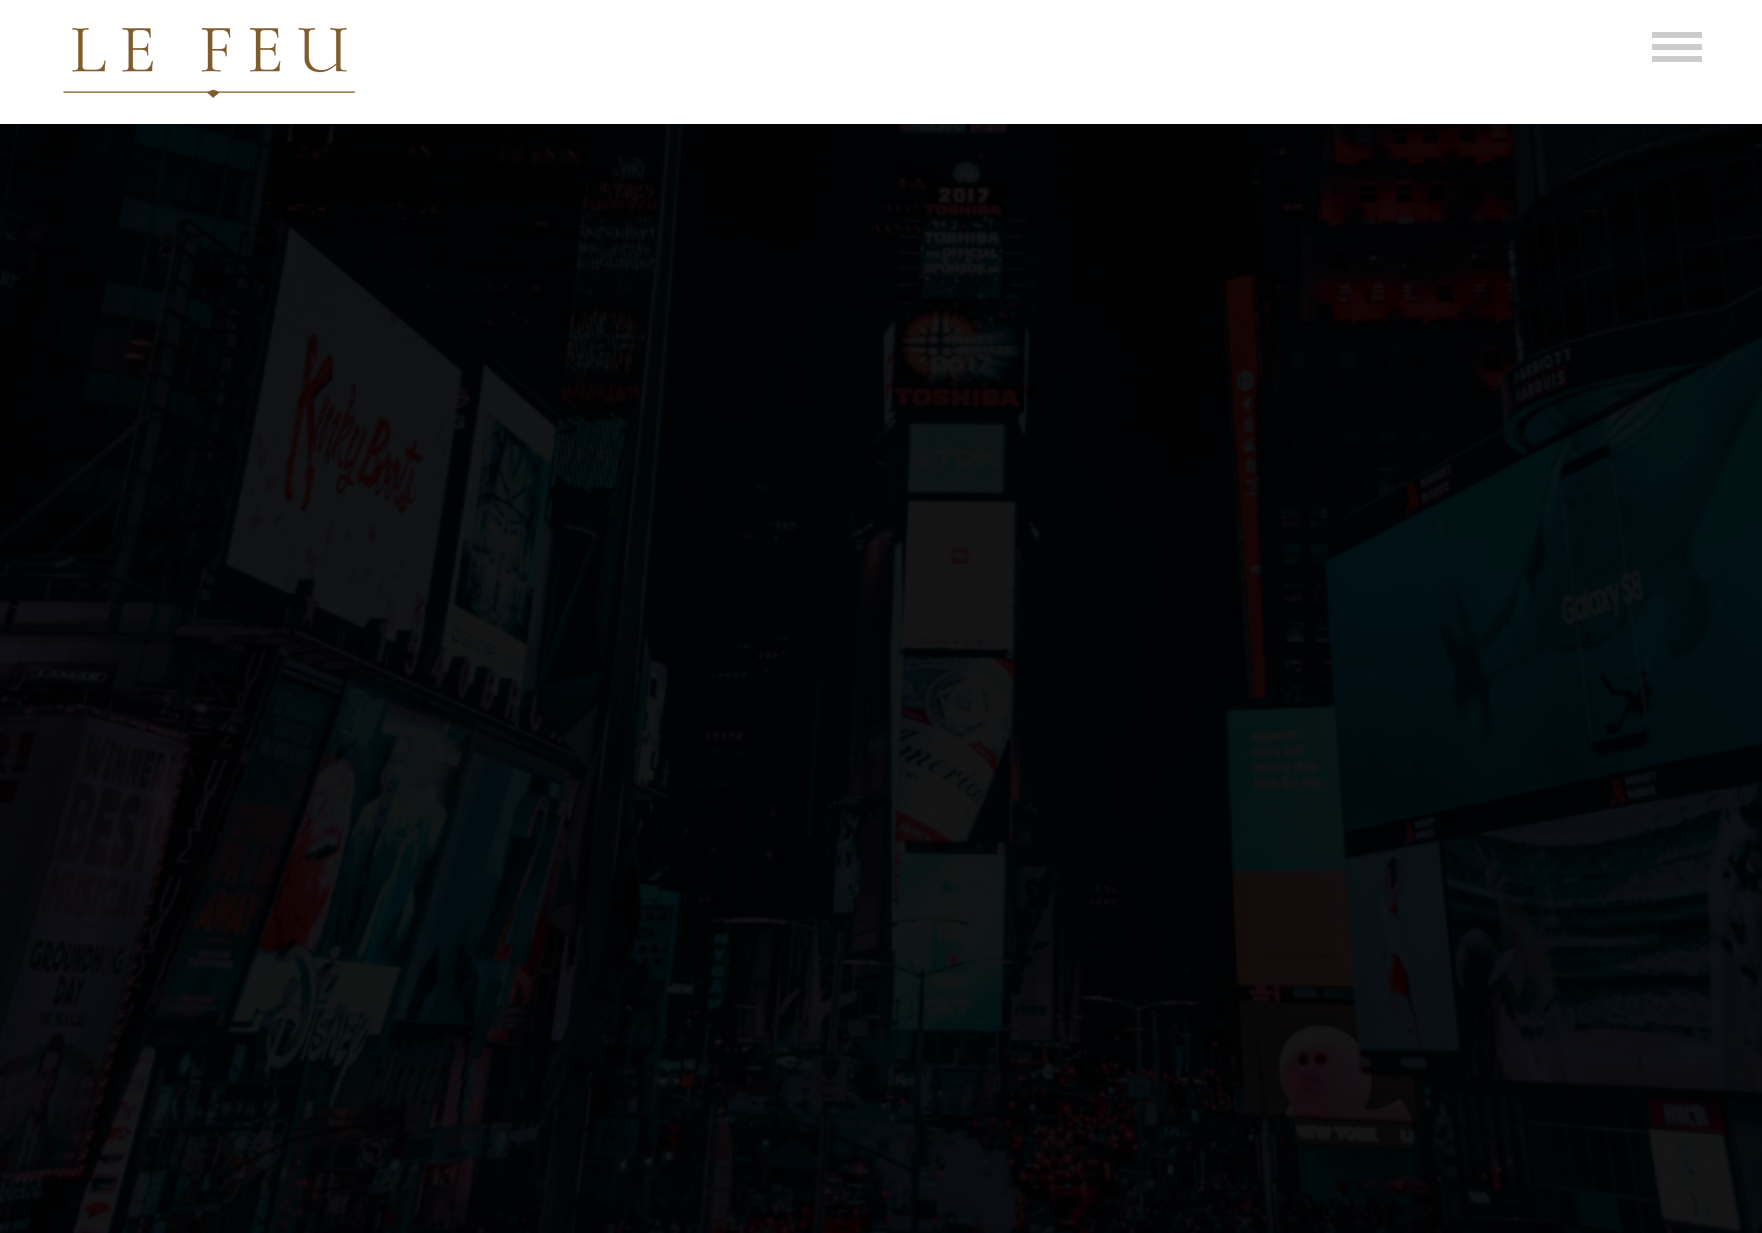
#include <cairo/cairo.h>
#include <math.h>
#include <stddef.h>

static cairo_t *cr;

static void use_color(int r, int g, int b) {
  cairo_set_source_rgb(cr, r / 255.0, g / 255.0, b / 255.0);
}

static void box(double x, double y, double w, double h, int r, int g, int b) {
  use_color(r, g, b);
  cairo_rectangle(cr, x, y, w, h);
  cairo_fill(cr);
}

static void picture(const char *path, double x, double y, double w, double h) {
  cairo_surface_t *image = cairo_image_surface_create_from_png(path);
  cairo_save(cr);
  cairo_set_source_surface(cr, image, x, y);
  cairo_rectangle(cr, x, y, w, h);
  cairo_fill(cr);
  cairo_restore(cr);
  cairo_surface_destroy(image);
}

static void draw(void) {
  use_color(0, 0, 0);
  cairo_paint(cr);
  box(0, 0, 1762, 124, 255, 255, 255);
  picture("img_01.png", 63, 28, 292, 70);
  box(1652, 32, 50, 6, 204, 204, 204);
  box(1652, 44, 50, 6, 204, 204, 204);
  box(1652, 56, 50, 6, 204, 204, 204);
  picture("img_02.png", 0, 124, 1762, 1109);
}

int main(void) {
  cairo_surface_t *surface = cairo_image_surface_create(CAIRO_FORMAT_RGB24, 1762, 1233);
  cr = cairo_create(surface);
  cairo_font_options_t *options = cairo_font_options_create();
  cairo_font_options_set_hint_metrics(options, CAIRO_HINT_METRICS_OFF);
  cairo_font_options_set_hint_style(options, CAIRO_HINT_STYLE_NONE);
  cairo_set_font_options(cr, options);
  cairo_set_miter_limit(cr, 4);
  draw();
  cairo_surface_write_to_png(surface, "out.png");
  cairo_font_options_destroy(options);
  cairo_destroy(cr);
  cairo_surface_destroy(surface);
  return 0;
}
